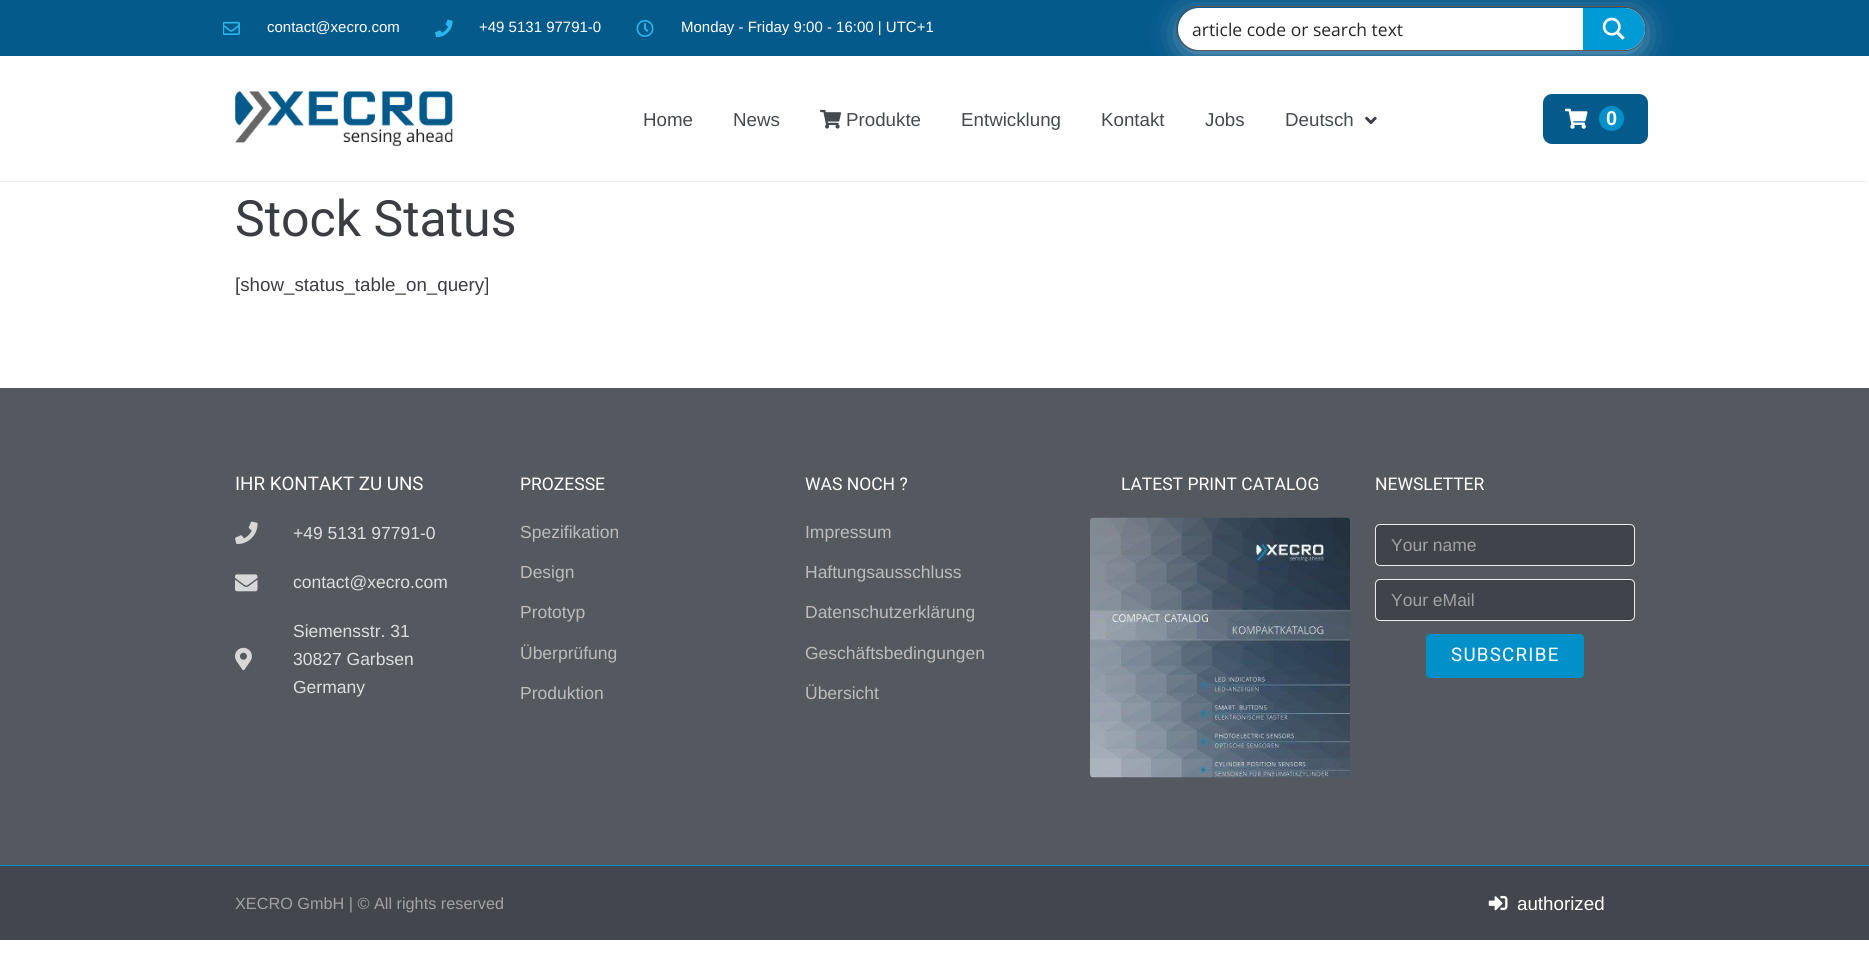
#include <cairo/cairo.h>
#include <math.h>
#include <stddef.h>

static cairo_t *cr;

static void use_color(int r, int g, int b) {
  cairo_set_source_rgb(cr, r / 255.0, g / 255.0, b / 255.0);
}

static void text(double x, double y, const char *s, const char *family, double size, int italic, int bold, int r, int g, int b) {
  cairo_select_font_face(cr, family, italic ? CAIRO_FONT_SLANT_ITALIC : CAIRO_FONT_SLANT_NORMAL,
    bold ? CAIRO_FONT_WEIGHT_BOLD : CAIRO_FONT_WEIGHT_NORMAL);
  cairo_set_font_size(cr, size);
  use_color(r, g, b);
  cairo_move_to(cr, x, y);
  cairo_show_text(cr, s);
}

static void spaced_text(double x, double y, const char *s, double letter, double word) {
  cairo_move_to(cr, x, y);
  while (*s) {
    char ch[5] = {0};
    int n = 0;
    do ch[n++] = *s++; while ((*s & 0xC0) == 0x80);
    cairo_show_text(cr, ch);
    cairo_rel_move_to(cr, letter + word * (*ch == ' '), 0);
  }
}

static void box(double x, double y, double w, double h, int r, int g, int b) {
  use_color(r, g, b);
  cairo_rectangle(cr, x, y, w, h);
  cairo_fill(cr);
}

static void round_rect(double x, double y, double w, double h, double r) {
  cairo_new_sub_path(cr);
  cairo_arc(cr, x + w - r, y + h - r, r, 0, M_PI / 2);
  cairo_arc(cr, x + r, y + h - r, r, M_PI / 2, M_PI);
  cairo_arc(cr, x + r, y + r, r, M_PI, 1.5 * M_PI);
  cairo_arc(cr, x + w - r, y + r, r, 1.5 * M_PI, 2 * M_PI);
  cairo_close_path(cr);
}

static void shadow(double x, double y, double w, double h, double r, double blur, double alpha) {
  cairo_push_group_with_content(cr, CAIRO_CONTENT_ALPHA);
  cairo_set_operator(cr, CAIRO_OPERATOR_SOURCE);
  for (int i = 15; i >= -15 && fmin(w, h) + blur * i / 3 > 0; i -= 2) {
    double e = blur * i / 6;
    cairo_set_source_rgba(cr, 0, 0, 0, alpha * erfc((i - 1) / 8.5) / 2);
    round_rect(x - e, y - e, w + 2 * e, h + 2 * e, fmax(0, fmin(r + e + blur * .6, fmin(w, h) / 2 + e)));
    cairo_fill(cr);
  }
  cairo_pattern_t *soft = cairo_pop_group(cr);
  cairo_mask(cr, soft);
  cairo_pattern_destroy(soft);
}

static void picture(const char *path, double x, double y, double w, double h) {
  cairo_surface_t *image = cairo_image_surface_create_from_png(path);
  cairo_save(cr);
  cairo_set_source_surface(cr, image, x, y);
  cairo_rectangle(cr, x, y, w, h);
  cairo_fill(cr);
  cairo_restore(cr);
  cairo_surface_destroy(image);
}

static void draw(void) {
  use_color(255, 255, 255);
  cairo_paint(cr);
  box(0, 0, 1869, 56, 5, 90, 140);
  picture("img_01.png", 223, 21, 17, 14);
  picture("img_02.png", 435, 19, 18, 19);
  picture("img_03.png", 636, 20, 18, 17);
  cairo_save(cr);
  cairo_set_fill_rule(cr, CAIRO_FILL_RULE_EVEN_ODD);
  cairo_new_path(cr);
  cairo_move_to(cr, 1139, 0);
  cairo_line_to(cr, 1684, 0);
  cairo_line_to(cr, 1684, 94);
  cairo_line_to(cr, 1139, 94);
  cairo_close_path(cr);
  cairo_move_to(cr, 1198.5, 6);
  cairo_line_to(cr, 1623.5, 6);
  cairo_curve_to(cr, 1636, 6, 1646, 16, 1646, 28.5);
  cairo_curve_to(cr, 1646, 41, 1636, 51, 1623.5, 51);
  cairo_line_to(cr, 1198.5, 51);
  cairo_curve_to(cr, 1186, 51, 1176, 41, 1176, 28.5);
  cairo_curve_to(cr, 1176, 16, 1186, 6, 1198.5, 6);
  cairo_close_path(cr);
  cairo_clip(cr);
  use_color(255, 255, 255);
  shadow(1193, 28, 437, 12, 6, 17.5, 1);
  cairo_restore(cr);
  round_rect(1176.5, 6.5, 469, 44, 22);
  use_color(96, 87, 87);
  cairo_set_line_width(cr, 1);
  cairo_stroke(cr);
  use_color(255, 255, 255);
  round_rect(1178, 8, 467, 42, 21);
  cairo_fill(cr);
  use_color(0, 154, 213);
  cairo_new_path(cr);
  cairo_move_to(cr, 1583, 8);
  cairo_line_to(cr, 1624, 8);
  cairo_curve_to(cr, 1635.5, 8, 1645, 17.5, 1645, 29);
  cairo_curve_to(cr, 1645, 40.5, 1635.5, 50, 1624, 50);
  cairo_line_to(cr, 1583, 50);
  cairo_close_path(cr);
  cairo_fill(cr);
  picture("img_04.png", 1602, 17, 23, 23);
  box(0, 181, 1866, 1, 237, 237, 237);
  picture("img_05.png", 235, 91, 218, 56);
  picture("img_06.png", 820, 109, 22, 20);
  picture("img_07.png", 1365, 116, 12, 9);
  use_color(5, 90, 140);
  round_rect(1543, 94, 105, 50, 9);
  cairo_fill(cr);
  picture("img_08.png", 1565, 108, 23, 21);
  use_color(1, 145, 200);
  cairo_arc(cr, 1611.5, 118.5, 12.5, 0, 2 * M_PI);
  cairo_fill(cr);
  box(0, 388, 1869, 477, 84, 89, 95);
  picture("img_09.png", 235, 521, 23, 24);
  picture("img_10.png", 235, 574, 23, 18);
  picture("img_11.png", 235, 647, 17, 24);
  picture("img_12.png", 1090, 517, 260, 261);
  use_color(64, 68, 74);
  round_rect(1375.5, 524.5, 259, 41, 4.5);
  cairo_fill_preserve(cr);
  use_color(235, 236, 237);
  cairo_stroke(cr);
  use_color(64, 68, 74);
  round_rect(1375.5, 579.5, 259, 41, 4.5);
  cairo_fill_preserve(cr);
  use_color(235, 236, 237);
  cairo_stroke(cr);
  use_color(1, 145, 200);
  round_rect(1426, 634, 158, 44, 4);
  cairo_fill(cr);
  box(0, 866, 1869, 74, 67, 70, 76);
  box(0, 865, 1869, 1, 1, 145, 200);
  picture("img_13.png", 1488, 895, 20, 16);
  text(267, 32, "contact@xecro.com", "Liberation Sans", 15, 0, 0, 255, 255, 255);
  text(479, 32, "+49 5131 97791-0", "Liberation Sans", 15, 0, 0, 255, 255, 255);
  text(681, 32, "Monday - Friday 9:00 - 16:00 | UTC+1", "Liberation Sans", 15, 0, 0, 255, 255, 255);
  text(1192, 36, "article code or search text", "Open Sans", 17.5, 0, 0, 38, 38, 38);
  text(643, 126, "Home", "Liberation Sans", 18.75, 0, 0, 70, 74, 78);
  text(733, 126, "News", "Liberation Sans", 18.75, 0, 0, 70, 74, 78);
  text(846, 126, "Produkte", "Liberation Sans", 18.75, 0, 0, 70, 74, 78);
  text(961, 126, "Entwicklung", "Liberation Sans", 18.75, 0, 0, 70, 74, 78);
  text(1101, 126, "Kontakt", "Liberation Sans", 18.75, 0, 0, 70, 74, 78);
  text(1205, 126, "Jobs", "Liberation Sans", 18.75, 0, 0, 70, 74, 78);
  text(1285, 126, "Deutsch", "Liberation Sans", 18.75, 0, 0, 70, 74, 78);
  text(1606, 125, "0", "Liberation Sans", 20, 0, 1, 255, 255, 255);
  text(235, 236, "Stock Status", "Roboto", 50, 0, 0, 59, 61, 66);
  text(235, 291, "[show_status_table_on_query]", "Liberation Sans", 18.75, 0, 0, 59, 61, 66);
  text(235, 490, "IHR KONTAKT ZU UNS", "Roboto", 18.75, 0, 0, 255, 255, 255);
  text(293, 539, "+49 5131 97791-0", "Liberation Sans", 17.5, 0, 0, 221, 222, 223);
  text(293, 588, "contact@xecro.com", "Liberation Sans", 17.5, 0, 0, 221, 222, 223);
  text(293, 637, "Siemensstr. 31", "Liberation Sans", 17.5, 0, 0, 221, 222, 223);
  text(293, 665, "30827 Garbsen", "Liberation Sans", 17.5, 0, 0, 221, 222, 223);
  text(293, 693, "Germany", "Liberation Sans", 17.5, 0, 0, 221, 222, 223);
  text(520, 490, "PROZESSE", "Roboto", 17.5, 0, 0, 255, 255, 255);
  text(520, 538, "Spezifikation", "Liberation Sans", 17.5, 0, 0, 188, 188, 188);
  text(520, 578, "Design", "Liberation Sans", 17.5, 0, 0, 188, 188, 188);
  text(520, 618, "Prototyp", "Liberation Sans", 17.5, 0, 0, 188, 188, 188);
  text(520, 659, "Überprüfung", "Liberation Sans", 17.5, 0, 0, 188, 188, 188);
  text(520, 699, "Produktion", "Liberation Sans", 17.5, 0, 0, 188, 188, 188);
  text(805, 490, "WAS NOCH ?", "Roboto", 17.5, 0, 0, 255, 255, 255);
  text(805, 538, "Impressum", "Liberation Sans", 17.5, 0, 0, 188, 188, 188);
  text(805, 578, "Haftungsausschluss", "Liberation Sans", 17.5, 0, 0, 188, 188, 188);
  text(805, 618, "Datenschutzerklärung", "Liberation Sans", 17.5, 0, 0, 188, 188, 188);
  text(805, 659, "Geschäftsbedingungen", "Liberation Sans", 17.5, 0, 0, 188, 188, 188);
  text(805, 699, "Übersicht", "Liberation Sans", 17.5, 0, 0, 188, 188, 188);
  text(1121, 490, "LATEST PRINT CATALOG", "Roboto", 17.5, 0, 0, 255, 255, 255);
  text(1375, 490, "NEWSLETTER", "Roboto", 17.5, 0, 0, 255, 255, 255);
  text(1391, 551, "Your name", "Liberation Sans", 17.5, 0, 0, 161, 162, 164);
  text(1391, 606, "Your eMail", "Liberation Sans", 17.5, 0, 0, 161, 162, 164);
  cairo_select_font_face(cr, "Roboto", CAIRO_FONT_SLANT_NORMAL, CAIRO_FONT_WEIGHT_NORMAL);
  cairo_set_font_size(cr, 18.75);
  use_color(255, 255, 255);
  spaced_text(1451, 661, "SUBSCRIBE", 1.25, 0);
  text(235, 909, "XECRO GmbH | © All rights reserved", "Liberation Sans", 16.25, 0, 0, 161, 162, 164);
  text(1517, 910, "authorized", "Liberation Sans", 18.75, 0, 0, 255, 255, 255);
}

int main(void) {
  cairo_surface_t *surface = cairo_image_surface_create(CAIRO_FORMAT_RGB24, 1869, 958);
  cr = cairo_create(surface);
  cairo_font_options_t *options = cairo_font_options_create();
  cairo_font_options_set_hint_metrics(options, CAIRO_HINT_METRICS_OFF);
  cairo_font_options_set_hint_style(options, CAIRO_HINT_STYLE_NONE);
  cairo_set_font_options(cr, options);
  cairo_set_miter_limit(cr, 4);
  draw();
  cairo_surface_write_to_png(surface, "out.png");
  cairo_font_options_destroy(options);
  cairo_destroy(cr);
  cairo_surface_destroy(surface);
  return 0;
}
